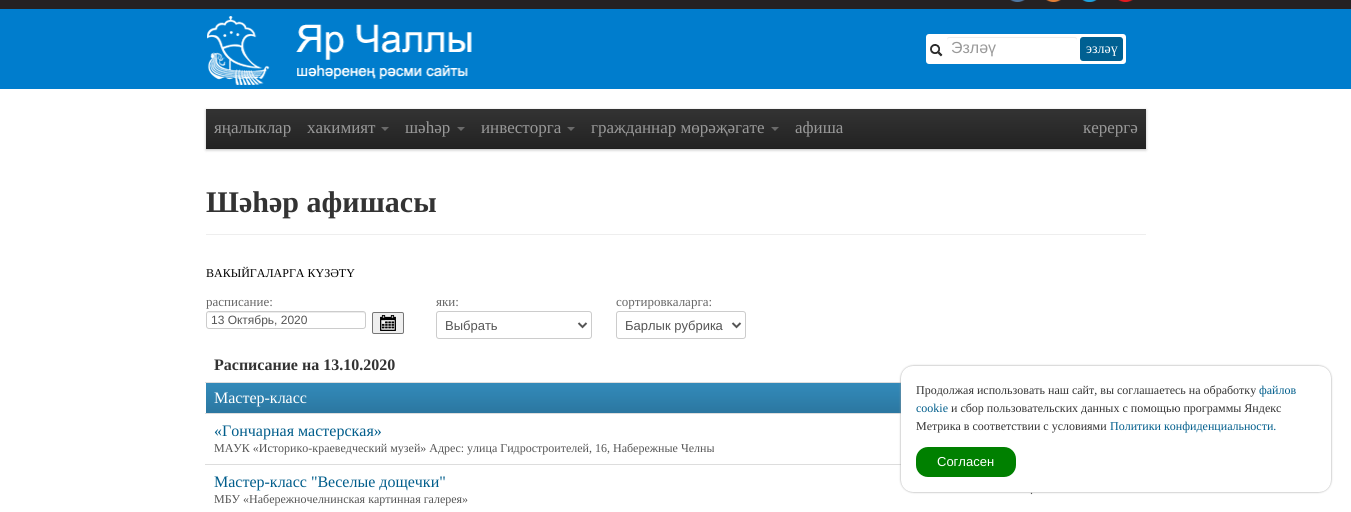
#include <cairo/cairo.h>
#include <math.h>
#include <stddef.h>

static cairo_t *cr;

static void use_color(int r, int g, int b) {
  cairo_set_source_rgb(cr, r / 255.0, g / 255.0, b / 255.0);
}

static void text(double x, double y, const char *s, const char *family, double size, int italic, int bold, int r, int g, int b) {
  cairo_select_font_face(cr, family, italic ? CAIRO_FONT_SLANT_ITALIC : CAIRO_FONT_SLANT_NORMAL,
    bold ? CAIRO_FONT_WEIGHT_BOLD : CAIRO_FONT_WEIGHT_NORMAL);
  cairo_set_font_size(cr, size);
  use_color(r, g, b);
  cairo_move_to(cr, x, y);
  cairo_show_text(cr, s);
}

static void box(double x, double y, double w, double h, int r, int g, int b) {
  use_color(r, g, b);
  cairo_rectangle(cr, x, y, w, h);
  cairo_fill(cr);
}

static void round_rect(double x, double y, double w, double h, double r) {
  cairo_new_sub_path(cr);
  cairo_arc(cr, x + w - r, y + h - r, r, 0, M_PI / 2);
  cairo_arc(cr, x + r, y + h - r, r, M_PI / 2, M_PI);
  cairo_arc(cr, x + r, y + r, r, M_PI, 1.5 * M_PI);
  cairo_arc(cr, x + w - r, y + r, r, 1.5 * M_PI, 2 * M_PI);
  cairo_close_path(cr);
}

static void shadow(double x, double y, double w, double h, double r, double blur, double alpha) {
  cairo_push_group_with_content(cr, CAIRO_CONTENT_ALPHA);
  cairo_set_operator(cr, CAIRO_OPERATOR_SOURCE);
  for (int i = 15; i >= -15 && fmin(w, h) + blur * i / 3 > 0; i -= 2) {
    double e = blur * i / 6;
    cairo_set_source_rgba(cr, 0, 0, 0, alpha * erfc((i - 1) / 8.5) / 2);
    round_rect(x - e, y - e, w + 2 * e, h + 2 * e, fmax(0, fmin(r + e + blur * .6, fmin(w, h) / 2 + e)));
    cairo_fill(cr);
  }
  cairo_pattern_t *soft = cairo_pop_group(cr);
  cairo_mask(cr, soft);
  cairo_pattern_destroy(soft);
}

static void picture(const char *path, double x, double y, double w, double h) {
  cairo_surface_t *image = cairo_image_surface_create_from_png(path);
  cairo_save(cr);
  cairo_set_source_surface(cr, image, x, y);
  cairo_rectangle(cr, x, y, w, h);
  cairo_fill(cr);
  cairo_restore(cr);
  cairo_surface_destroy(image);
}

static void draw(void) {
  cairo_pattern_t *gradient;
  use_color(255, 255, 255);
  cairo_paint(cr);
  box(0, 0, 1351, 9, 37, 33, 34);
  picture("img_01.png", 1010, 0, 15, 2);
  picture("img_02.png", 1046, 0, 15, 2);
  picture("img_03.png", 1082, 0, 15, 2);
  picture("img_04.png", 1118, 0, 15, 2);
  box(0, 9, 1351, 80, 0, 125, 205);
  picture("img_05.png", 207, 16, 265, 69);
  use_color(255, 255, 255);
  round_rect(926, 34, 200, 30, 3);
  cairo_fill(cr);
  picture("img_06.png", 930, 44, 13, 13);
  use_color(236, 236, 236);
  cairo_new_path(cr);
  cairo_move_to(cr, 950, 38);
  cairo_line_to(cr, 1074, 38);
  cairo_curve_to(cr, 1076, 38, 1077, 39, 1077, 41);
  cairo_curve_to(cr, 1077, 39, 1077, 37, 1075, 37);
  cairo_line_to(cr, 949, 37);
  cairo_curve_to(cr, 947, 37, 947, 39, 947, 41);
  cairo_curve_to(cr, 947, 39, 948, 38, 950, 38);
  cairo_close_path(cr);
  cairo_fill(cr);
  use_color(0, 96, 146);
  round_rect(1080, 37, 43, 24, 3);
  cairo_fill(cr);
  use_color(0, 0, 0);
  shadow(206, 110, 940, 40, 0, 1.5, 0.25);
  gradient = cairo_pattern_create_linear(676, 109, 676, 149);
  cairo_pattern_add_color_stop_rgba(gradient, 0, 0.2, 0.2, 0.2, 1);
  cairo_pattern_add_color_stop_rgba(gradient, 1, 0.133, 0.133, 0.133, 1);
  cairo_set_source(cr, gradient);
  cairo_pattern_destroy(gradient);
  cairo_rectangle(cr, 206, 109, 940, 39);
  cairo_fill(cr);
  box(206, 148, 940, 1, 31, 31, 31);
  use_color(106, 106, 106);
  cairo_new_path(cr);
  cairo_move_to(cr, 381, 127);
  cairo_line_to(cr, 389, 127);
  cairo_line_to(cr, 385, 131);
  cairo_close_path(cr);
  cairo_fill(cr);
  cairo_new_path(cr);
  cairo_move_to(cr, 457, 127);
  cairo_line_to(cr, 465, 127);
  cairo_line_to(cr, 461, 131);
  cairo_close_path(cr);
  cairo_fill(cr);
  cairo_new_path(cr);
  cairo_move_to(cr, 567, 127);
  cairo_line_to(cr, 575, 127);
  cairo_line_to(cr, 571, 131);
  cairo_close_path(cr);
  cairo_fill(cr);
  cairo_new_path(cr);
  cairo_move_to(cr, 771, 127);
  cairo_line_to(cr, 779, 127);
  cairo_line_to(cr, 775, 131);
  cairo_close_path(cr);
  cairo_fill(cr);
  box(206, 234, 940, 1, 238, 238, 238);
  use_color(236, 236, 236);
  cairo_new_path(cr);
  cairo_move_to(cr, 209, 313);
  cairo_line_to(cr, 363, 313);
  cairo_curve_to(cr, 364, 313, 365, 314, 365, 315);
  cairo_curve_to(cr, 365, 314, 365, 312, 363, 312);
  cairo_line_to(cr, 209, 312);
  cairo_line_to(cr, 208, 313);
  cairo_line_to(cr, 207, 315);
  cairo_curve_to(cr, 207, 314, 208, 313, 209, 313);
  cairo_close_path(cr);
  cairo_fill(cr);
  round_rect(206.5, 311.5, 159, 17, 2.5);
  use_color(204, 204, 204);
  cairo_set_line_width(cr, 1);
  cairo_stroke(cr);
  use_color(239, 239, 239);
  round_rect(372.5, 312.5, 31, 21, 1.5);
  cairo_fill_preserve(cr);
  use_color(118, 118, 118);
  cairo_stroke(cr);
  picture("img_07.png", 380, 315, 16, 16);
  round_rect(436.5, 311.5, 155, 27, 2.5);
  use_color(204, 204, 204);
  cairo_stroke(cr);
  cairo_new_path(cr);
  cairo_move_to(cr, 578.5, 323);
  cairo_line_to(cr, 582.5, 327);
  cairo_line_to(cr, 586.5, 323);
  use_color(85, 85, 85);
  cairo_set_line_width(cr, 2);
  cairo_stroke(cr);
  round_rect(616.5, 311.5, 129, 27, 2.5);
  use_color(204, 204, 204);
  cairo_set_line_width(cr, 1);
  cairo_stroke(cr);
  cairo_new_path(cr);
  cairo_move_to(cr, 732.5, 323);
  cairo_line_to(cr, 736.5, 327);
  cairo_line_to(cr, 740.5, 323);
  use_color(85, 85, 85);
  cairo_set_line_width(cr, 2);
  cairo_stroke(cr);
  box(205, 382, 696, 1, 221, 221, 221);
  picture("img_08.png", 206, 383, 695, 30);
  box(205, 413, 696, 1, 221, 221, 221);
  box(205, 464, 696, 1, 221, 221, 221);
  use_color(152, 152, 152);
  shadow(901, 366, 430, 126, 12, 1, 1);
  use_color(255, 255, 255);
  round_rect(901, 366, 430, 126, 12);
  cairo_fill(cr);
  use_color(0, 128, 0);
  round_rect(916, 447, 100, 30, 12);
  cairo_fill(cr);
  text(951, 53, "Эзләү", "Liberation Sans", 16, 0, 0, 153, 153, 153);
  text(1086, 53, "эзләү", "Liberation Serif", 14, 0, 0, 255, 255, 255);
  text(214, 133, "яңалыклар", "Liberation Serif", 17, 0, 0, 153, 153, 153);
  text(307, 133, "хакимият", "Liberation Serif", 17, 0, 0, 153, 153, 153);
  text(405, 133, "шәһәр", "Liberation Serif", 17, 0, 0, 153, 153, 153);
  text(481, 133, "инвесторга", "Liberation Serif", 17, 0, 0, 153, 153, 153);
  text(591, 133, "гражданнар мөрәҗәгате", "Liberation Serif", 17, 0, 0, 153, 153, 153);
  text(795, 133, "афиша", "Liberation Serif", 17, 0, 0, 153, 153, 153);
  text(1083, 133, "керергә", "Liberation Serif", 17, 0, 0, 153, 153, 153);
  text(206, 212, "Шәһәр афишасы", "Liberation Serif", 30, 0, 1, 51, 51, 51);
  text(206, 277, "ВАКЫЙГАЛАРГА КҮЗӘТҮ", "Liberation Serif", 12, 0, 0, 0, 0, 0);
  text(206, 306, "расписание:", "Liberation Serif", 13, 0, 0, 102, 102, 102);
  text(211, 324, "13 Октябрь, 2020", "Liberation Sans", 12, 0, 0, 85, 85, 85);
  text(436, 306, "яки:", "Liberation Serif", 13, 0, 0, 102, 102, 102);
  text(445, 330, "Выбрать", "Liberation Sans", 13, 0, 0, 85, 85, 85);
  text(616, 306, "сортировкаларга:", "Liberation Serif", 13, 0, 0, 102, 102, 102);
  text(625, 330, "Барлык рубрика", "Liberation Sans", 13, 0, 0, 85, 85, 85);
  text(214, 370, "Расписание на 13.10.2020", "Liberation Serif", 16, 0, 1, 51, 51, 51);
  text(214, 403, "Мастер-класс", "Liberation Serif", 16, 0, 0, 255, 255, 255);
  text(214, 436, "«Гончарная мастерская»", "Liberation Serif", 16, 0, 0, 0, 93, 139);
  text(214, 452, "МАУК «Историко-краеведческий музей» Адрес: улица Гидростроителей, 16, Набережные Челны", "Liberation Serif", 12, 0, 0, 85, 85, 85);
  text(214, 487, "Мастер-класс \"Веселые дощечки\"", "Liberation Serif", 16, 0, 0, 0, 93, 139);
  text(214, 503, "МБУ «Набережночелнинская картинная галерея»", "Liberation Serif", 12, 0, 0, 85, 85, 85);
  text(1030, 494, ".", "Liberation Serif", 12, 0, 0, 85, 85, 85);
  text(916, 394, "Продолжая использовать наш сайт, вы соглашаетесь на обработку", "Liberation Serif", 12, 0, 0, 51, 51, 51);
  text(1259, 394, "файлов", "Liberation Serif", 12, 0, 0, 0, 93, 139);
  text(916, 412, "cookie", "Liberation Serif", 12, 0, 0, 0, 93, 139);
  text(951, 412, "и сбор пользовательских данных с помощью программы Яндекс", "Liberation Serif", 12, 0, 0, 51, 51, 51);
  text(916, 430, "Метрика в соответствии с условиями", "Liberation Serif", 12, 0, 0, 51, 51, 51);
  text(1110, 430, "Политики конфиденциальности.", "Liberation Serif", 12, 0, 0, 0, 93, 139);
  text(937, 466, "Согласен", "Liberation Sans", 13, 0, 0, 255, 255, 255);
}

int main(void) {
  cairo_surface_t *surface = cairo_image_surface_create(CAIRO_FORMAT_RGB24, 1351, 512);
  cr = cairo_create(surface);
  cairo_font_options_t *options = cairo_font_options_create();
  cairo_font_options_set_hint_metrics(options, CAIRO_HINT_METRICS_OFF);
  cairo_font_options_set_hint_style(options, CAIRO_HINT_STYLE_NONE);
  cairo_set_font_options(cr, options);
  cairo_set_miter_limit(cr, 4);
  draw();
  cairo_surface_write_to_png(surface, "out.png");
  cairo_font_options_destroy(options);
  cairo_destroy(cr);
  cairo_surface_destroy(surface);
  return 0;
}
